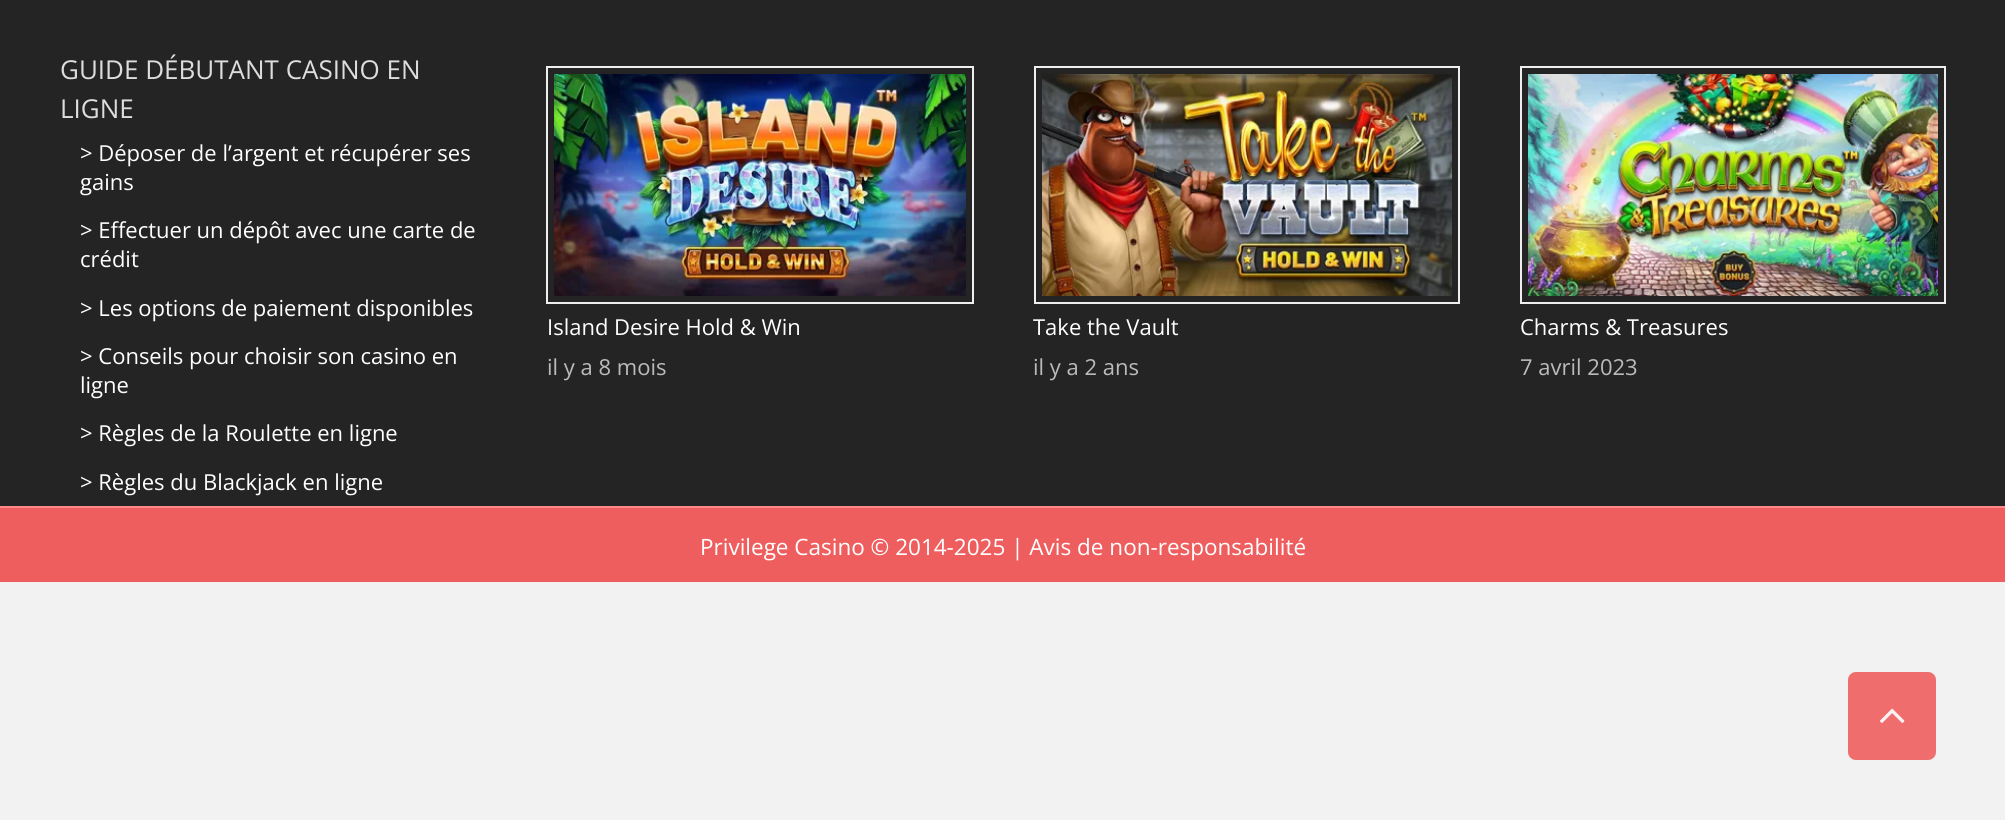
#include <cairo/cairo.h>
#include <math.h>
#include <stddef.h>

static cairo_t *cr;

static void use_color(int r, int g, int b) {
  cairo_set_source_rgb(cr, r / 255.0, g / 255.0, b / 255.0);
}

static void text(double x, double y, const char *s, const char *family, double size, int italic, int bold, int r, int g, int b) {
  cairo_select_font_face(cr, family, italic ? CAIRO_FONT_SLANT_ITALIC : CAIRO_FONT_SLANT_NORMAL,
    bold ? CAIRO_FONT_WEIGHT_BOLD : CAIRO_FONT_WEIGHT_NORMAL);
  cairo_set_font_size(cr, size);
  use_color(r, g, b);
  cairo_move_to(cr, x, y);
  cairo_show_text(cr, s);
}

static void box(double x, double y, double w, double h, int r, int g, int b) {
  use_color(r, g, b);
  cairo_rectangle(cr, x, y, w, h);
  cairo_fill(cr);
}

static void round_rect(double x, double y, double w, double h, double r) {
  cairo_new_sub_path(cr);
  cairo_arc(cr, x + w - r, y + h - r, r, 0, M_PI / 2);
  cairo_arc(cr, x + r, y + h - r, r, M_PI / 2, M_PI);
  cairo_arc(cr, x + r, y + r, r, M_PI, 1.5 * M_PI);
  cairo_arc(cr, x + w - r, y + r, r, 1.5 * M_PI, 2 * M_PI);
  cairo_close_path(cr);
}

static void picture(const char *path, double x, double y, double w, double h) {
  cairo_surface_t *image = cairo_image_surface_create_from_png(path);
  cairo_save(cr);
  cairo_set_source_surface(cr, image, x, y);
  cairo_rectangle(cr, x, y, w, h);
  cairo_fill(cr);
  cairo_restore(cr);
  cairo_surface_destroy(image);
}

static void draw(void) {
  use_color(242, 242, 242);
  cairo_paint(cr);
  box(0, 0, 2005, 506, 36, 36, 36);
  cairo_rectangle(cr, 547, 67, 426, 236);
  use_color(238, 238, 238);
  cairo_stroke(cr);
  picture("img_01.png", 554, 74, 412, 222);
  cairo_rectangle(cr, 1035, 67, 424, 236);
  cairo_stroke(cr);
  picture("img_02.png", 1042, 74, 410, 222);
  cairo_rectangle(cr, 1521, 67, 424, 236);
  cairo_stroke(cr);
  picture("img_03.png", 1528, 74, 410, 222);
  box(0, 508, 2005, 74, 239, 94, 94);
  box(0, 506, 2005, 2, 255, 137, 137);
  use_color(239, 109, 108);
  round_rect(1848, 672, 88, 88, 8);
  cairo_fill(cr);
  picture("img_04.png", 1880, 708, 25, 15);
  text(60, 79, "GUIDE DÉBUTANT CASINO EN", "Open Sans", 26, 0, 0, 221, 221, 221);
  text(60, 118, "LIGNE", "Open Sans", 26, 0, 0, 221, 221, 221);
  text(80, 161, "> Déposer de l’argent et récupérer ses", "Open Sans", 22, 0, 0, 255, 255, 255);
  text(80, 190, "gains", "Open Sans", 22, 0, 0, 255, 255, 255);
  text(80, 238, "> Effectuer un dépôt avec une carte de", "Open Sans", 22, 0, 0, 255, 255, 255);
  text(80, 267, "crédit", "Open Sans", 22, 0, 0, 255, 255, 255);
  text(80, 316, "> Les options de paiement disponibles", "Open Sans", 22, 0, 0, 255, 255, 255);
  text(80, 364, "> Conseils pour choisir son casino en", "Open Sans", 22, 0, 0, 255, 255, 255);
  text(80, 393, "ligne", "Open Sans", 22, 0, 0, 255, 255, 255);
  text(80, 441, "> Règles de la Roulette en ligne", "Open Sans", 22, 0, 0, 255, 255, 255);
  text(80, 490, "> Règles du Blackjack en ligne", "Open Sans", 22, 0, 0, 255, 255, 255);
  text(547, 335, "Island Desire Hold & Win", "Open Sans", 22, 0, 0, 255, 255, 255);
  text(547, 375, "il y a 8 mois", "Open Sans", 22, 0, 0, 187, 187, 187);
  text(1033, 335, "Take the Vault", "Open Sans", 22, 0, 0, 255, 255, 255);
  text(1033, 375, "il y a 2 ans", "Open Sans", 22, 0, 0, 187, 187, 187);
  text(1520, 335, "Charms & Treasures", "Open Sans", 22, 0, 0, 255, 255, 255);
  text(1520, 375, "7 avril 2023", "Open Sans", 22, 0, 0, 187, 187, 187);
  text(700, 555, "Privilege Casino © 2014-2025 | Avis de non-responsabilité", "Open Sans", 22.5, 0, 0, 255, 255, 255);
}

int main(void) {
  cairo_surface_t *surface = cairo_image_surface_create(CAIRO_FORMAT_RGB24, 2005, 820);
  cr = cairo_create(surface);
  cairo_font_options_t *options = cairo_font_options_create();
  cairo_font_options_set_hint_metrics(options, CAIRO_HINT_METRICS_OFF);
  cairo_font_options_set_hint_style(options, CAIRO_HINT_STYLE_NONE);
  cairo_set_font_options(cr, options);
  cairo_set_miter_limit(cr, 4);
  draw();
  cairo_surface_write_to_png(surface, "out.png");
  cairo_font_options_destroy(options);
  cairo_destroy(cr);
  cairo_surface_destroy(surface);
  return 0;
}
